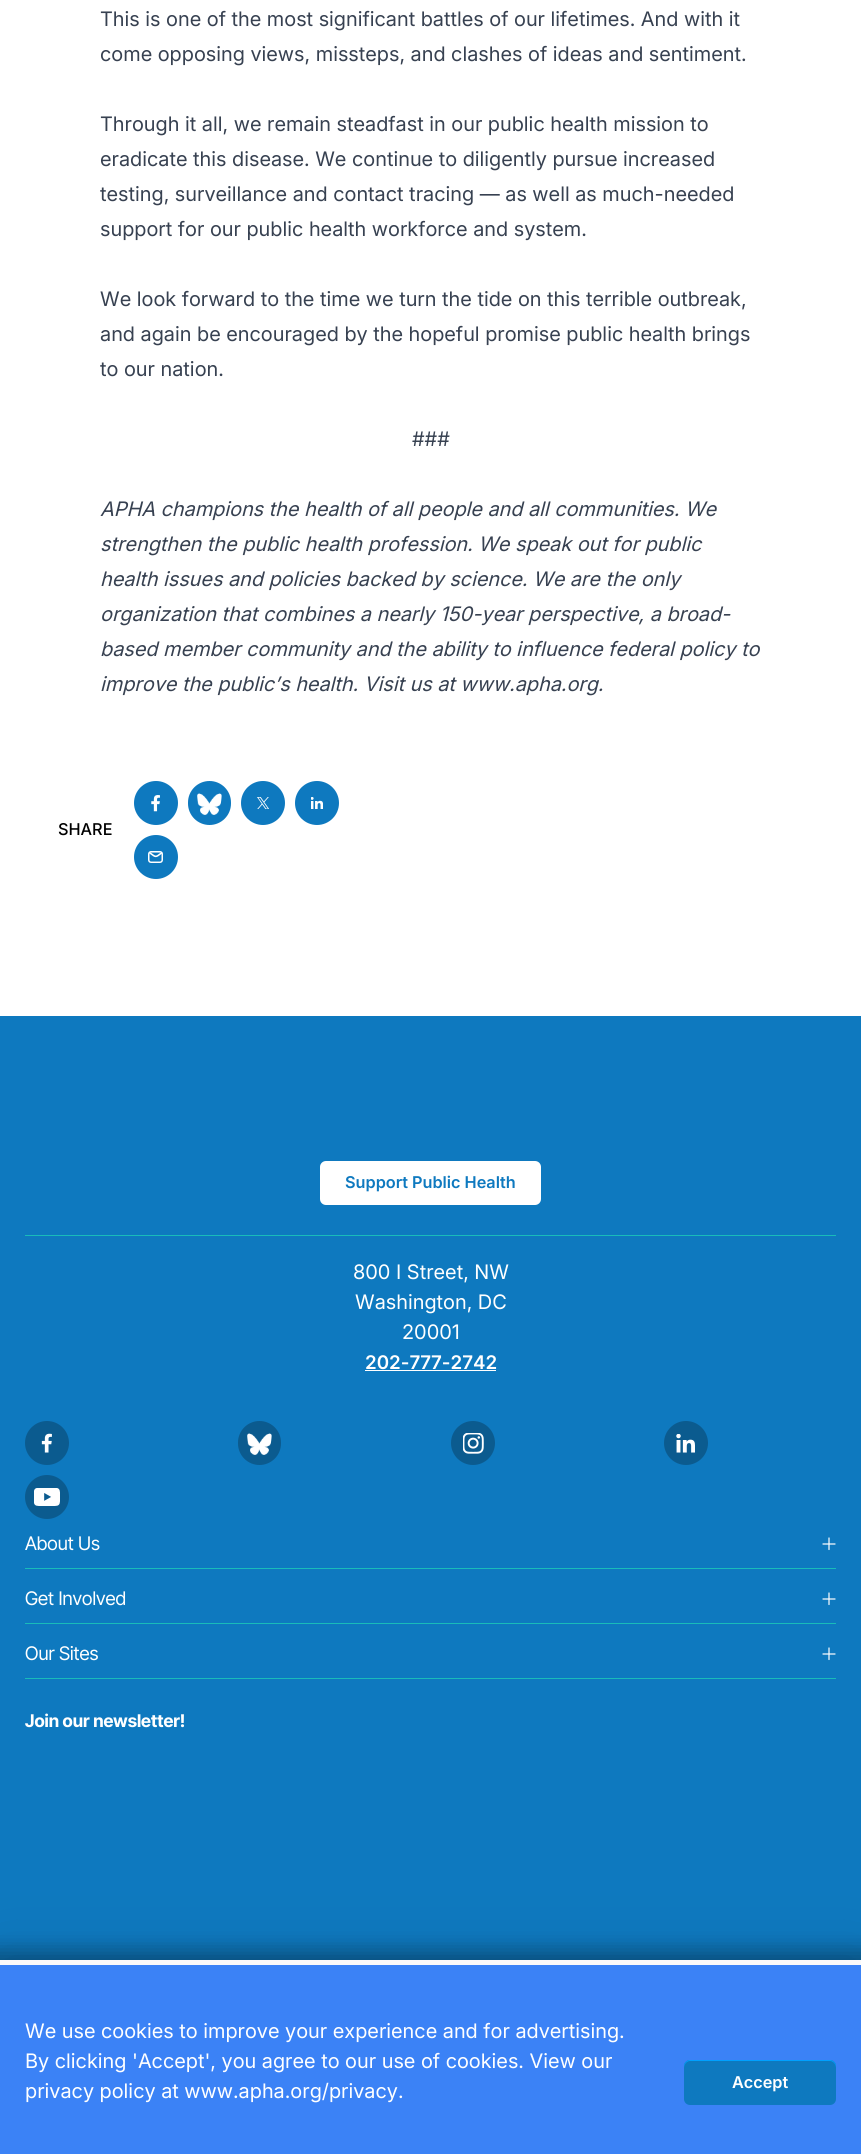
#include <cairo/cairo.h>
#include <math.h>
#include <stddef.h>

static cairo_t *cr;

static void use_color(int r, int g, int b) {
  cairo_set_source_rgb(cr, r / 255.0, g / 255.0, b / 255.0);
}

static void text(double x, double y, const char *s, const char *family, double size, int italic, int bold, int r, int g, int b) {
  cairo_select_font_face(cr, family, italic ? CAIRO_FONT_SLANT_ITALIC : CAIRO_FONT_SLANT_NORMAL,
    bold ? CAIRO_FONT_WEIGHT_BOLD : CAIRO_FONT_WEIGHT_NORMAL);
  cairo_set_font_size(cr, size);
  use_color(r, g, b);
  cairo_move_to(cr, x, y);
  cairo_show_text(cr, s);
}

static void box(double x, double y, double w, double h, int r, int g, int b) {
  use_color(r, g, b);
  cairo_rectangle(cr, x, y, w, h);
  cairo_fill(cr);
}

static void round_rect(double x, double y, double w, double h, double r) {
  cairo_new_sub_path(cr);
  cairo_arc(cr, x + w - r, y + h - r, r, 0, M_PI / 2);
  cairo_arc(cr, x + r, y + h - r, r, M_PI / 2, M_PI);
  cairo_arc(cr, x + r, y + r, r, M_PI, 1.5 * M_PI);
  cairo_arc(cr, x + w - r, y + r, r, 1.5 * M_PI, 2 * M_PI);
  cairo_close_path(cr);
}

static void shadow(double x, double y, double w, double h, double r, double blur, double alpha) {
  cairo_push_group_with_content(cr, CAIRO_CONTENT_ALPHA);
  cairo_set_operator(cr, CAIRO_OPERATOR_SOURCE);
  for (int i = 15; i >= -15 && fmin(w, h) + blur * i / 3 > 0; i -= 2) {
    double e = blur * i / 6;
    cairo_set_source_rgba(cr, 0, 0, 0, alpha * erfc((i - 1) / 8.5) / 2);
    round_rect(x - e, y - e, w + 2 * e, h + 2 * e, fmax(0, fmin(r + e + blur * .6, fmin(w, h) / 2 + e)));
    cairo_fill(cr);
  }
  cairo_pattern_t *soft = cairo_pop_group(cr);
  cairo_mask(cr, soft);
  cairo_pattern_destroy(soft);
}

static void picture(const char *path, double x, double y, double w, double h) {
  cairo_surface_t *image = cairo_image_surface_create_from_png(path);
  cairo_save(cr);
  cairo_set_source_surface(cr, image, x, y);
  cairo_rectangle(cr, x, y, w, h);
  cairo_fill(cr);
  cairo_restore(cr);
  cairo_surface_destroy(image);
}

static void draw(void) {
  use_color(255, 255, 255);
  cairo_paint(cr);
  use_color(14, 121, 191);
  cairo_arc(cr, 156, 803, 22, 0, 2 * M_PI);
  cairo_fill(cr);
  picture("img_01.png", 151, 795, 9, 17);
  round_rect(188, 781, 43, 44, 21.5);
  cairo_fill(cr);
  picture("img_02.png", 197, 793, 25, 22);
  cairo_arc(cr, 263, 803, 22, 0, 2 * M_PI);
  cairo_fill(cr);
  picture("img_03.png", 257, 797, 12, 12);
  cairo_arc(cr, 317, 803, 22, 0, 2 * M_PI);
  cairo_fill(cr);
  picture("img_04.png", 311, 797, 12, 12);
  cairo_arc(cr, 156, 857, 22, 0, 2 * M_PI);
  cairo_fill(cr);
  cairo_new_path(cr);
  cairo_move_to(cr, 150, 853);
  cairo_curve_to(cr, 156, 857.5, 155.5, 857.5, 161.5, 853);
  use_color(255, 255, 255);
  cairo_set_line_width(cr, 1.6);
  cairo_set_line_cap(cr, CAIRO_LINE_CAP_ROUND);
  cairo_set_line_join(cr, CAIRO_LINE_JOIN_ROUND);
  cairo_stroke(cr);
  round_rect(148.75, 851.75, 13.5, 10.5, 2.25);
  cairo_set_line_width(cr, 1.5);
  cairo_set_line_cap(cr, CAIRO_LINE_CAP_BUTT);
  cairo_set_line_join(cr, CAIRO_LINE_JOIN_MITER);
  cairo_stroke(cr);
  box(0, 1016, 861, 944, 14, 121, 191);
  box(25, 1235, 811, 1, 25, 188, 185);
  use_color(255, 255, 255);
  round_rect(320, 1161, 221, 44, 6);
  cairo_fill(cr);
  box(365, 1370, 131, 1, 255, 255, 255);
  use_color(11, 91, 143);
  cairo_arc(cr, 47, 1443, 22, 0, 2 * M_PI);
  cairo_fill(cr);
  picture("img_05.png", 41, 1433, 11, 20);
  round_rect(238, 1421, 43, 44, 21.5);
  cairo_fill(cr);
  picture("img_06.png", 247, 1433, 25, 22);
  cairo_arc(cr, 473, 1443, 22, 0, 2 * M_PI);
  cairo_fill(cr);
  picture("img_07.png", 463, 1433, 21, 21);
  cairo_arc(cr, 686, 1443, 22, 0, 2 * M_PI);
  cairo_fill(cr);
  picture("img_08.png", 676, 1434, 19, 19);
  cairo_arc(cr, 47, 1497, 22, 0, 2 * M_PI);
  cairo_fill(cr);
  picture("img_09.png", 34, 1488, 26, 18);
  box(25, 1568, 811, 1, 25, 188, 185);
  cairo_new_path(cr);
  cairo_move_to(cr, 823, 1544);
  cairo_line_to(cr, 835, 1544);
  cairo_move_to(cr, 829, 1549.5);
  cairo_line_to(cr, 829, 1538);
  use_color(255, 255, 255);
  cairo_set_line_width(cr, 1.2);
  cairo_set_line_cap(cr, CAIRO_LINE_CAP_ROUND);
  cairo_set_line_join(cr, CAIRO_LINE_JOIN_ROUND);
  cairo_stroke(cr);
  box(25, 1623, 811, 1, 25, 188, 185);
  cairo_new_path(cr);
  cairo_move_to(cr, 823, 1599);
  cairo_line_to(cr, 835, 1599);
  cairo_move_to(cr, 829, 1604.5);
  cairo_line_to(cr, 829, 1593);
  use_color(255, 255, 255);
  cairo_stroke(cr);
  box(25, 1678, 811, 1, 25, 188, 185);
  cairo_new_path(cr);
  cairo_move_to(cr, 823, 1654);
  cairo_line_to(cr, 835, 1654);
  cairo_move_to(cr, 829, 1659.5);
  cairo_line_to(cr, 829, 1648);
  use_color(255, 255, 255);
  cairo_stroke(cr);
  use_color(0, 0, 0);
  shadow(0, 1960, 861, 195, 0, 35, 0.1);
  shadow(-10, 1950, 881, 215, 0, 10, 0.3);
  box(0, 1965, 861, 189, 59, 130, 246);
  box(0, 1960, 861, 5, 250, 249, 249);
  use_color(14, 121, 191);
  round_rect(684, 2060, 152, 45, 6);
  cairo_fill(cr);
  use_color(0, 160, 255);
  cairo_new_path(cr);
  cairo_move_to(cr, 690, 2061);
  cairo_line_to(cr, 830, 2061);
  cairo_curve_to(cr, 833, 2061, 836, 2064, 836, 2068);
  cairo_line_to(cr, 836, 2066);
  cairo_curve_to(cr, 836, 2063, 833, 2060, 830, 2060);
  cairo_line_to(cr, 690, 2060);
  cairo_curve_to(cr, 687, 2060, 684, 2063, 684, 2066);
  cairo_line_to(cr, 684, 2068);
  cairo_curve_to(cr, 684, 2064, 687, 2061, 690, 2061);
  cairo_close_path(cr);
  cairo_fill(cr);
  text(100, 26, "This is one of the most significant battles of our lifetimes. And with it", "Inter", 20, 0, 0, 55, 65, 81);
  text(100, 61, "come opposing views, missteps, and clashes of ideas and sentiment.", "Inter", 20, 0, 0, 55, 65, 81);
  text(100, 131, "Through it all, we remain steadfast in our public health mission to", "Inter", 20, 0, 0, 55, 65, 81);
  text(100, 166, "eradicate this disease. We continue to diligently pursue increased", "Inter", 20, 0, 0, 55, 65, 81);
  text(100, 201, "testing, surveillance and contact tracing — as well as much-needed", "Inter", 20, 0, 0, 55, 65, 81);
  text(100, 236, "support for our public health workforce and system.", "Inter", 20, 0, 0, 55, 65, 81);
  text(100, 306, "We look forward to the time we turn the tide on this terrible outbreak,", "Inter", 20, 0, 0, 55, 65, 81);
  text(100, 341, "and again be encouraged by the hopeful promise public health brings", "Inter", 20, 0, 0, 55, 65, 81);
  text(100, 376, "to our nation.", "Inter", 20, 0, 0, 55, 65, 81);
  text(412, 446, "###", "Inter", 20, 0, 0, 55, 65, 81);
  text(100, 516, "APHA champions the health of all people and all communities. We", "Inter", 20, 1, 0, 55, 65, 81);
  text(100, 551, "strengthen the public health profession. We speak out for public", "Inter", 20, 1, 0, 55, 65, 81);
  text(100, 586, "health issues and policies backed by science. We are the only", "Inter", 20, 1, 0, 55, 65, 81);
  text(100, 621, "organization that combines a nearly 150-year perspective, a broad-", "Inter", 20, 1, 0, 55, 65, 81);
  text(100, 656, "based member community and the ability to influence federal policy to", "Inter", 20, 1, 0, 55, 65, 81);
  text(100, 691, "improve the public’s health. Visit us at www.apha.org.", "Inter", 20, 1, 0, 55, 65, 81);
  text(58, 835, "SHARE", "Inter Medium", 16.25, 0, 0, 0, 0, 0);
  text(345, 1188, "Support Public Health", "Inter SemiBold", 16.25, 0, 0, 14, 121, 191);
  text(353, 1279, "800 I Street, NW", "Inter", 20, 0, 0, 255, 255, 255);
  text(355, 1309, "Washington, DC", "Inter", 20, 0, 0, 255, 255, 255);
  text(402, 1339, "20001", "Inter", 20, 0, 0, 255, 255, 255);
  text(365, 1369, "202-777-2742", "Inter SemiBold", 18.75, 0, 0, 255, 255, 255);
  text(25, 1550, "About Us", "Inter Tight", 18.75, 0, 0, 255, 255, 255);
  text(25, 1605, "Get Involved", "Inter Tight", 18.75, 0, 0, 255, 255, 255);
  text(25, 1660, "Our Sites", "Inter Tight", 18.75, 0, 0, 255, 255, 255);
  text(25, 1727, "Join our newsletter!", "Inter Tight", 17.5, 0, 1, 255, 255, 255);
  text(25, 2038, "We use cookies to improve your experience and for advertising.", "Inter", 20, 0, 0, 255, 255, 255);
  text(25, 2068, "By clicking 'Accept', you agree to our use of cookies. View our", "Inter", 20, 0, 0, 255, 255, 255);
  text(25, 2098, "privacy policy at www.apha.org/privacy.", "Inter", 20, 0, 0, 255, 255, 255);
  text(732, 2088, "Accept", "Inter SemiBold", 16.25, 0, 0, 255, 255, 255);
}

int main(void) {
  cairo_surface_t *surface = cairo_image_surface_create(CAIRO_FORMAT_RGB24, 861, 2154);
  cr = cairo_create(surface);
  cairo_font_options_t *options = cairo_font_options_create();
  cairo_font_options_set_hint_metrics(options, CAIRO_HINT_METRICS_OFF);
  cairo_font_options_set_hint_style(options, CAIRO_HINT_STYLE_NONE);
  cairo_set_font_options(cr, options);
  cairo_set_miter_limit(cr, 4);
  draw();
  cairo_surface_write_to_png(surface, "out.png");
  cairo_font_options_destroy(options);
  cairo_destroy(cr);
  cairo_surface_destroy(surface);
  return 0;
}
